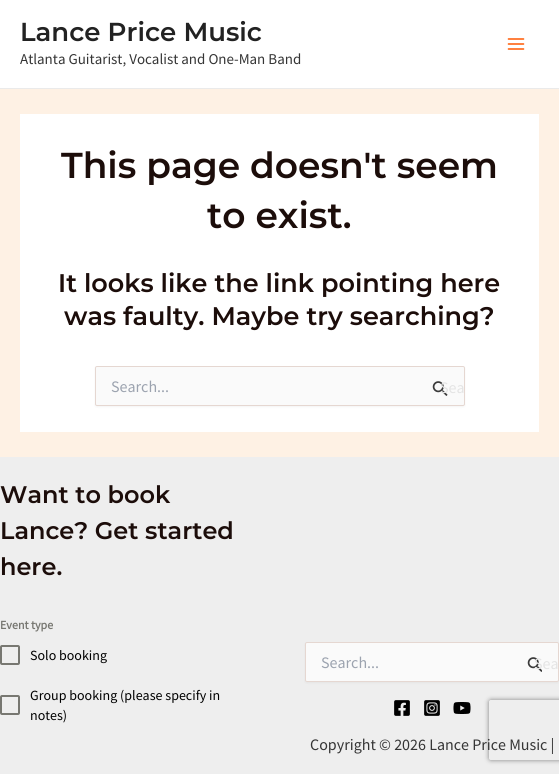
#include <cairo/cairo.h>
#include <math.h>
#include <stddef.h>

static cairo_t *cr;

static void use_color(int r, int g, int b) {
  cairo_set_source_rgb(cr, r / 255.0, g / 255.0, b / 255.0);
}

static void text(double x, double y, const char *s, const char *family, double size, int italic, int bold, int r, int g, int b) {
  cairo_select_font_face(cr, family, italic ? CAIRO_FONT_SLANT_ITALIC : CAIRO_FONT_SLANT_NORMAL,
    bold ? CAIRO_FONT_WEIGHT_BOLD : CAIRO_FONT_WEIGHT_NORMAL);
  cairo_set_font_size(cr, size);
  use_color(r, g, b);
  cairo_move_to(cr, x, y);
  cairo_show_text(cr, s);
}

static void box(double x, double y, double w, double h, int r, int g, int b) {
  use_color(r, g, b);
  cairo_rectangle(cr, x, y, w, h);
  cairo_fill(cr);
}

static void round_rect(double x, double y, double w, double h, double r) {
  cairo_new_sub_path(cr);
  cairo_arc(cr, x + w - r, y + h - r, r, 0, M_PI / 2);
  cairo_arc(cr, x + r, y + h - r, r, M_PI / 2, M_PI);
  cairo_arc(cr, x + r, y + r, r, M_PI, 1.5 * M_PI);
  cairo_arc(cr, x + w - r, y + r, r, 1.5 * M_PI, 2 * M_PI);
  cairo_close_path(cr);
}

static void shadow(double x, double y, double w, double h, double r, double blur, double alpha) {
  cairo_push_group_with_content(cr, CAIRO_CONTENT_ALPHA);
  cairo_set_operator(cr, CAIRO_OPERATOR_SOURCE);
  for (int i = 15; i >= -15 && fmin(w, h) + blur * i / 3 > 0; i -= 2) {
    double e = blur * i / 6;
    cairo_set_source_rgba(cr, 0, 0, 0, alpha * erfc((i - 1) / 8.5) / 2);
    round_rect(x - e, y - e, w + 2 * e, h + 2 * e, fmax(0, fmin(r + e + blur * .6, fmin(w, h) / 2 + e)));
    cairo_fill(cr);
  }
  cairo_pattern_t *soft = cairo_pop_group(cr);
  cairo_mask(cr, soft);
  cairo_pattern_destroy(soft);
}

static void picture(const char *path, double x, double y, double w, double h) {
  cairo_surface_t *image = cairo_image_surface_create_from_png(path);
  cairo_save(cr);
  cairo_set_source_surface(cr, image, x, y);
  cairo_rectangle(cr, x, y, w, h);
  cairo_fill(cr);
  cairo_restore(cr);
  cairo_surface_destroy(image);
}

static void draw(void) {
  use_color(254, 241, 228);
  cairo_paint(cr);
  box(0, 0, 559, 88, 255, 255, 255);
  box(0, 88, 559, 1, 234, 234, 234);
  picture("img_01.png", 507, 38, 18, 12);
  box(20, 114, 519, 318, 255, 255, 255);
  use_color(0, 0, 0);
  shadow(95, 367, 370, 40, 2, 1, 0.05);
  use_color(250, 250, 250);
  round_rect(95.5, 366.5, 369, 39, 1.5);
  cairo_fill_preserve(cr);
  use_color(229, 215, 209);
  cairo_set_line_width(cr, 1);
  cairo_stroke(cr);
  picture("img_02.png", 432, 381, 16, 15);
  box(0, 457, 559, 317, 238, 238, 238);
  round_rect(1, 646, 18, 18, 1);
  use_color(119, 119, 113);
  cairo_set_line_width(cr, 2);
  cairo_stroke(cr);
  round_rect(1, 696, 18, 18, 1);
  cairo_stroke(cr);
  cairo_save(cr);
  cairo_set_fill_rule(cr, CAIRO_FILL_RULE_EVEN_ODD);
  cairo_new_path(cr);
  cairo_move_to(cr, 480, 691);
  cairo_line_to(cr, 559, 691);
  cairo_line_to(cr, 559, 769);
  cairo_line_to(cr, 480, 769);
  cairo_close_path(cr);
  cairo_move_to(cr, 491, 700);
  cairo_line_to(cr, 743, 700);
  cairo_curve_to(cr, 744, 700, 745, 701, 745, 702);
  cairo_line_to(cr, 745, 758);
  cairo_curve_to(cr, 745, 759, 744, 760, 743, 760);
  cairo_line_to(cr, 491, 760);
  cairo_curve_to(cr, 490, 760, 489, 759, 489, 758);
  cairo_line_to(cr, 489, 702);
  cairo_curve_to(cr, 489, 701, 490, 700, 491, 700);
  cairo_close_path(cr);
  cairo_clip(cr);
  use_color(128, 128, 128);
  shadow(489, 700, 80, 60, 2, 2.5, 1);
  cairo_restore(cr);
  use_color(0, 0, 0);
  shadow(305, 643, 254, 40, 2, 1, 0.05);
  use_color(250, 250, 250);
  round_rect(305.5, 642.5, 253, 39, 1.5);
  cairo_fill_preserve(cr);
  use_color(229, 215, 209);
  cairo_set_line_width(cr, 1);
  cairo_stroke(cr);
  picture("img_03.png", 527, 657, 15, 15);
  picture("img_04.png", 394, 700, 16, 16);
  picture("img_05.png", 424, 700, 16, 16);
  picture("img_06.png", 453, 702, 18, 12);
  text(20, 41, "Lance Price Music", "Montserrat SemiBold", 26, 0, 0, 34, 34, 34);
  text(20, 64, "Atlanta Guitarist, Vocalist and One-Man Band", "Source Sans Pro", 15, 0, 0, 53, 53, 53);
  text(61, 178, "This page doesn't seem", "Montserrat SemiBold", 36, 0, 0, 28, 13, 10);
  text(207, 228, "to exist.", "Montserrat SemiBold", 36, 0, 0, 28, 13, 10);
  text(58, 292, "It looks like the link pointing here", "Montserrat SemiBold", 25.5, 0, 0, 28, 13, 10);
  text(64, 325, "was faulty. Maybe try searching?", "Montserrat SemiBold", 25.5, 0, 0, 28, 13, 10);
  text(111, 392, "Search...", "Source Sans Pro", 16, 0, 0, 156, 163, 175);
  text(440, 393, "Sea", "Source Sans Pro", 16, 0, 0, 228, 228, 228);
  text(0, 503, "Want to book", "Montserrat SemiBold", 24, 0, 0, 28, 13, 10);
  text(0, 539, "Lance? Get started", "Montserrat SemiBold", 24, 0, 0, 28, 13, 10);
  text(0, 575, "here.", "Montserrat SemiBold", 24, 0, 0, 28, 13, 10);
  text(0, 629, "Event type", "Source Sans Pro", 12, 0, 1, 119, 119, 113);
  text(30, 660, "Solo booking", "Source Sans Pro", 14, 0, 0, 0, 0, 0);
  text(30, 700, "Group booking (please specify in", "Source Sans Pro", 14, 0, 0, 0, 0, 0);
  text(30, 720, "notes)", "Source Sans Pro", 14, 0, 0, 0, 0, 0);
  text(321, 668, "Search...", "Source Sans Pro", 16, 0, 0, 156, 163, 175);
  text(534, 669, "Sea", "Source Sans Pro", 16, 0, 0, 228, 228, 228);
  text(310, 750, "Copyright © 2026 Lance Price Music |", "Source Sans Pro", 16, 0, 0, 53, 53, 53);
}

int main(void) {
  cairo_surface_t *surface = cairo_image_surface_create(CAIRO_FORMAT_RGB24, 559, 774);
  cr = cairo_create(surface);
  cairo_font_options_t *options = cairo_font_options_create();
  cairo_font_options_set_hint_metrics(options, CAIRO_HINT_METRICS_OFF);
  cairo_font_options_set_hint_style(options, CAIRO_HINT_STYLE_NONE);
  cairo_set_font_options(cr, options);
  cairo_set_miter_limit(cr, 4);
  draw();
  cairo_surface_write_to_png(surface, "out.png");
  cairo_font_options_destroy(options);
  cairo_destroy(cr);
  cairo_surface_destroy(surface);
  return 0;
}
